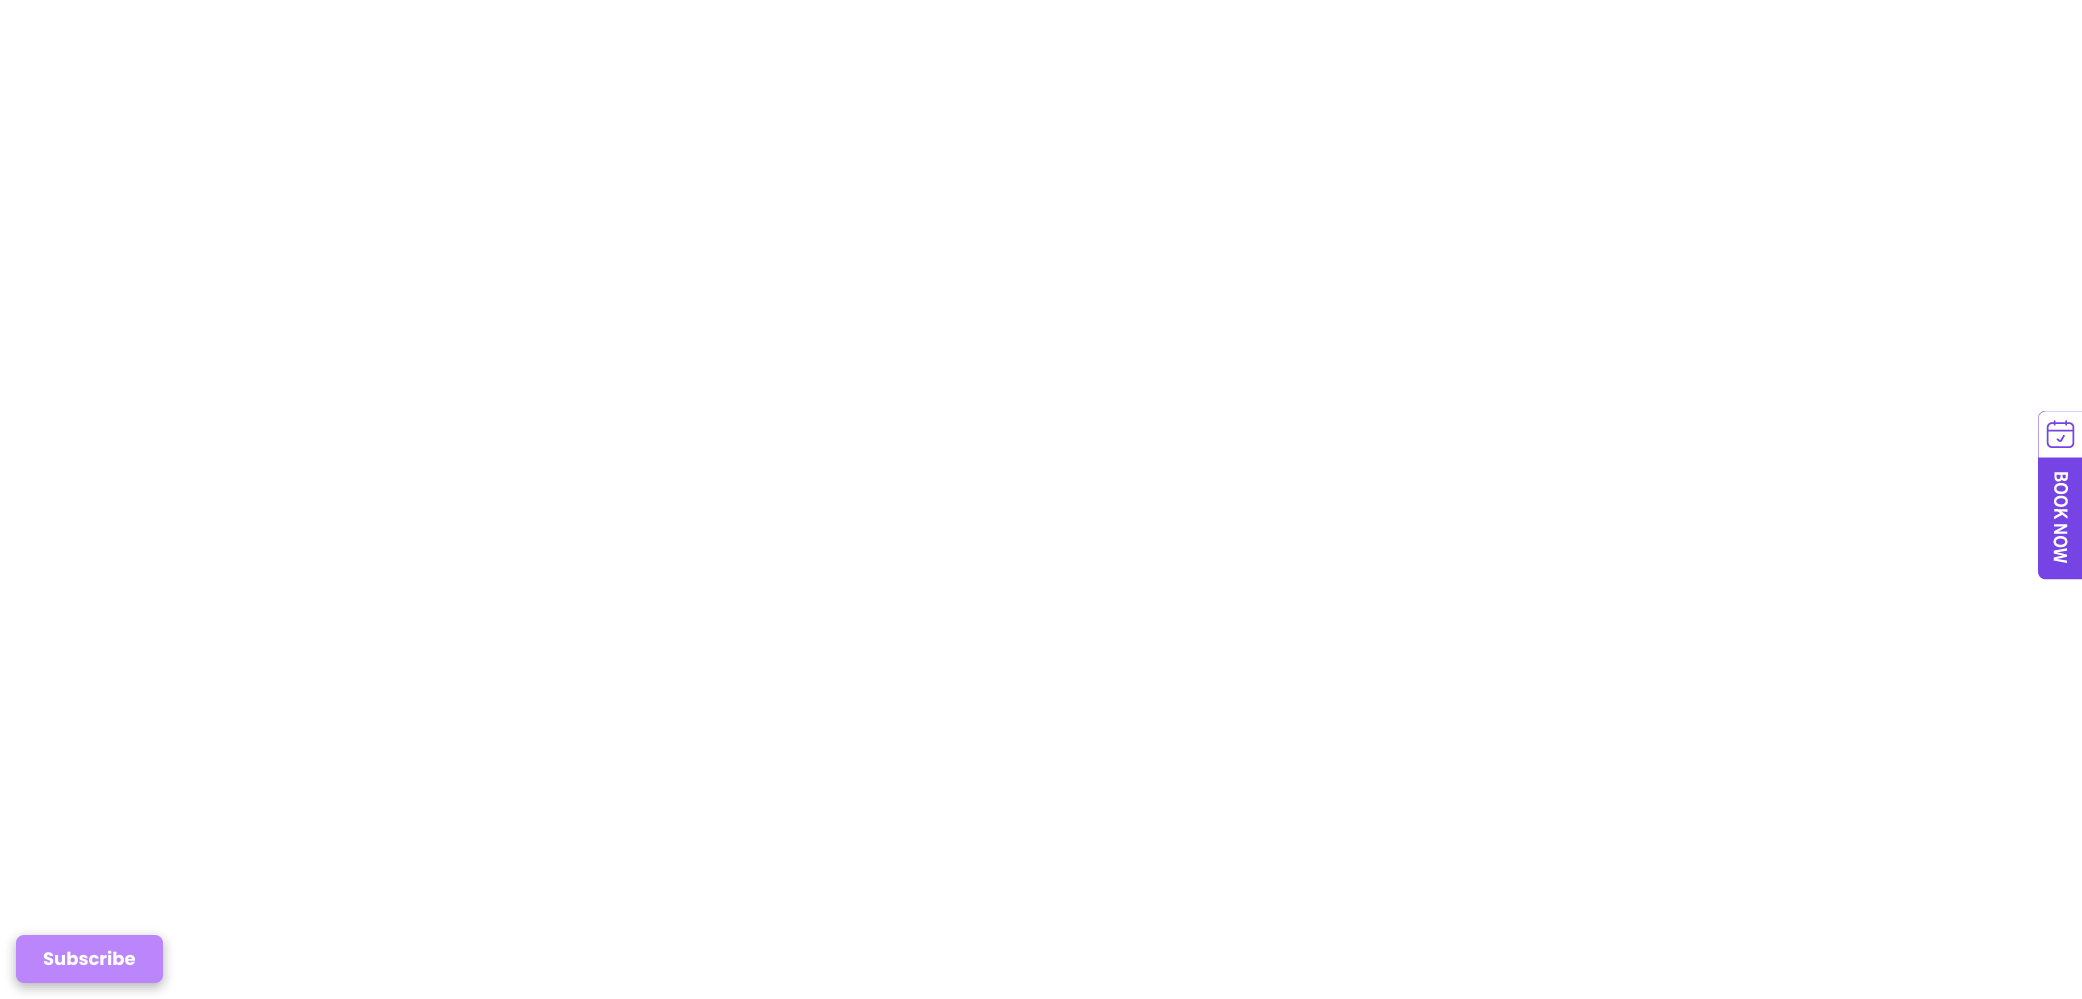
#include <cairo/cairo.h>
#include <math.h>
#include <stddef.h>

static cairo_t *cr;

static void use_color(int r, int g, int b) {
  cairo_set_source_rgb(cr, r / 255.0, g / 255.0, b / 255.0);
}

static void text(double x, double y, const char *s, const char *family, double size, int italic, int bold, int r, int g, int b) {
  cairo_select_font_face(cr, family, italic ? CAIRO_FONT_SLANT_ITALIC : CAIRO_FONT_SLANT_NORMAL,
    bold ? CAIRO_FONT_WEIGHT_BOLD : CAIRO_FONT_WEIGHT_NORMAL);
  cairo_set_font_size(cr, size);
  use_color(r, g, b);
  cairo_move_to(cr, x, y);
  cairo_show_text(cr, s);
}

static void round_rect(double x, double y, double w, double h, double r) {
  cairo_new_sub_path(cr);
  cairo_arc(cr, x + w - r, y + h - r, r, 0, M_PI / 2);
  cairo_arc(cr, x + r, y + h - r, r, M_PI / 2, M_PI);
  cairo_arc(cr, x + r, y + r, r, M_PI, 1.5 * M_PI);
  cairo_arc(cr, x + w - r, y + r, r, 1.5 * M_PI, 2 * M_PI);
  cairo_close_path(cr);
}

static void shadow(double x, double y, double w, double h, double r, double blur, double alpha) {
  cairo_push_group_with_content(cr, CAIRO_CONTENT_ALPHA);
  cairo_set_operator(cr, CAIRO_OPERATOR_SOURCE);
  for (int i = 15; i >= -15 && fmin(w, h) + blur * i / 3 > 0; i -= 2) {
    double e = blur * i / 6;
    cairo_set_source_rgba(cr, 0, 0, 0, alpha * erfc((i - 1) / 8.5) / 2);
    round_rect(x - e, y - e, w + 2 * e, h + 2 * e, fmax(0, fmin(r + e + blur * .6, fmin(w, h) / 2 + e)));
    cairo_fill(cr);
  }
  cairo_pattern_t *soft = cairo_pop_group(cr);
  cairo_mask(cr, soft);
  cairo_pattern_destroy(soft);
}

static void picture(const char *path, double x, double y, double w, double h) {
  cairo_surface_t *image = cairo_image_surface_create_from_png(path);
  cairo_save(cr);
  cairo_set_source_surface(cr, image, x, y);
  cairo_rectangle(cr, x, y, w, h);
  cairo_fill(cr);
  cairo_restore(cr);
  cairo_surface_destroy(image);
}

static void draw(void) {
  use_color(255, 255, 255);
  cairo_paint(cr);
  picture("img_01.png", 2038, 411, 44, 169);
  use_color(0, 0, 0);
  shadow(16, 939, 147, 48, 8, 6, 0.3);
  use_color(187, 134, 252);
  round_rect(16, 935, 147, 48, 8);
  cairo_fill(cr);
  text(43, 965, "Subscribe", "Poppins", 18, 0, 1, 255, 255, 255);
}

int main(void) {
  cairo_surface_t *surface = cairo_image_surface_create(CAIRO_FORMAT_RGB24, 2082, 999);
  cr = cairo_create(surface);
  cairo_font_options_t *options = cairo_font_options_create();
  cairo_font_options_set_hint_metrics(options, CAIRO_HINT_METRICS_OFF);
  cairo_font_options_set_hint_style(options, CAIRO_HINT_STYLE_NONE);
  cairo_set_font_options(cr, options);
  cairo_set_miter_limit(cr, 4);
  draw();
  cairo_surface_write_to_png(surface, "out.png");
  cairo_font_options_destroy(options);
  cairo_destroy(cr);
  cairo_surface_destroy(surface);
  return 0;
}
